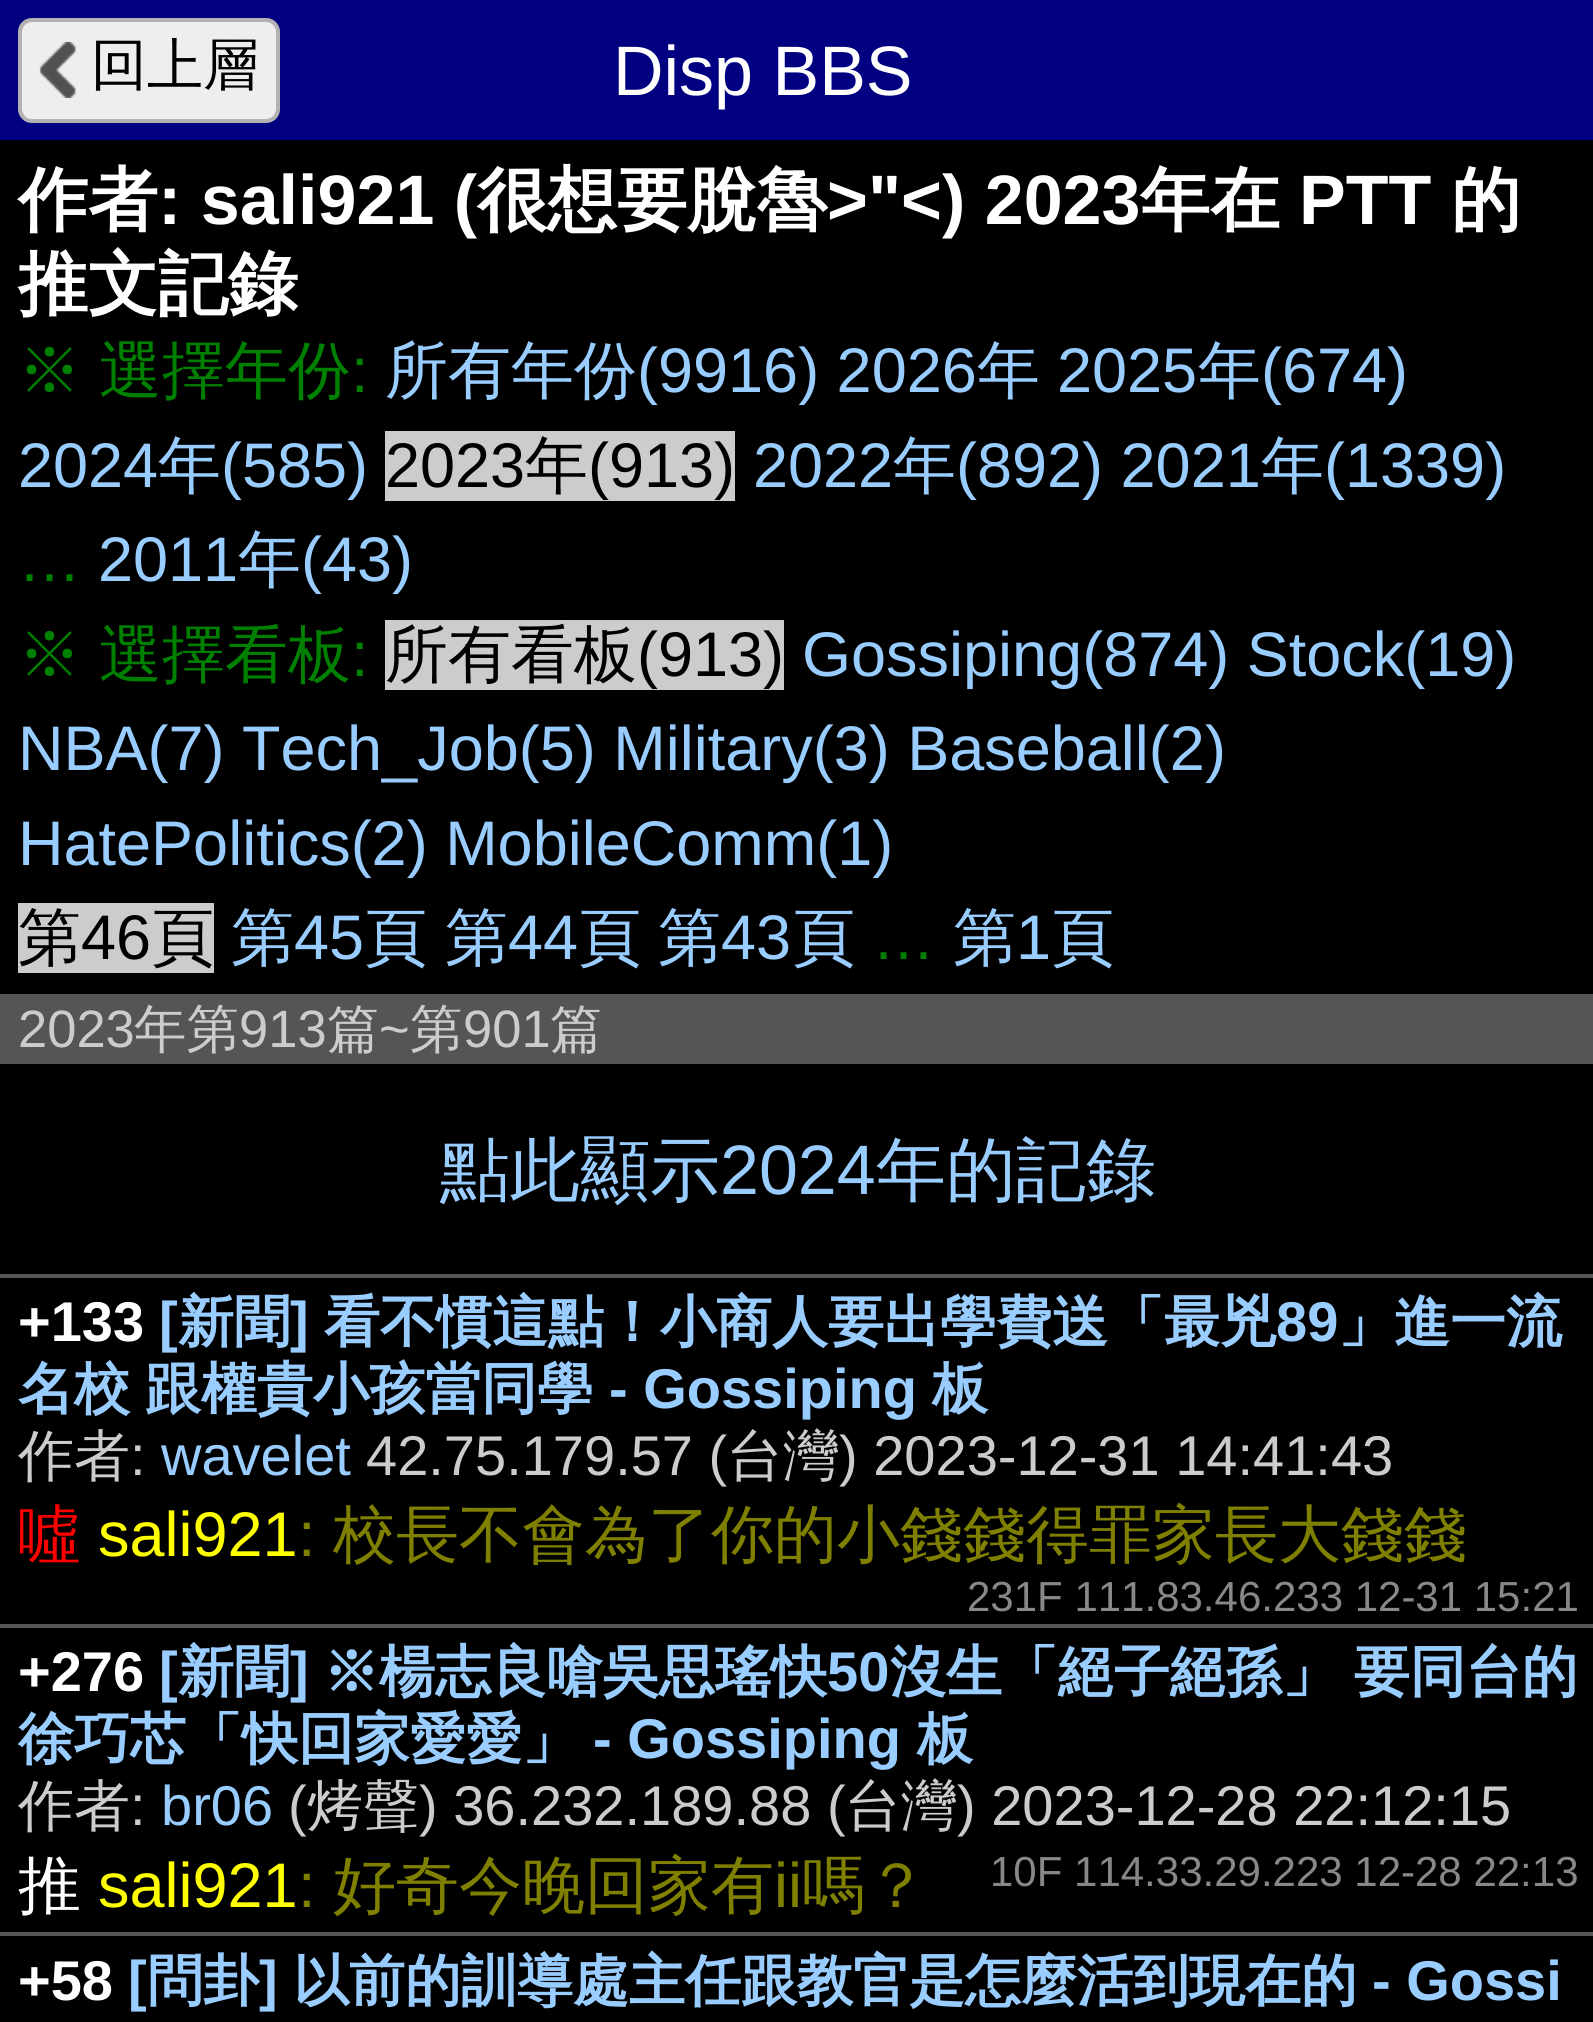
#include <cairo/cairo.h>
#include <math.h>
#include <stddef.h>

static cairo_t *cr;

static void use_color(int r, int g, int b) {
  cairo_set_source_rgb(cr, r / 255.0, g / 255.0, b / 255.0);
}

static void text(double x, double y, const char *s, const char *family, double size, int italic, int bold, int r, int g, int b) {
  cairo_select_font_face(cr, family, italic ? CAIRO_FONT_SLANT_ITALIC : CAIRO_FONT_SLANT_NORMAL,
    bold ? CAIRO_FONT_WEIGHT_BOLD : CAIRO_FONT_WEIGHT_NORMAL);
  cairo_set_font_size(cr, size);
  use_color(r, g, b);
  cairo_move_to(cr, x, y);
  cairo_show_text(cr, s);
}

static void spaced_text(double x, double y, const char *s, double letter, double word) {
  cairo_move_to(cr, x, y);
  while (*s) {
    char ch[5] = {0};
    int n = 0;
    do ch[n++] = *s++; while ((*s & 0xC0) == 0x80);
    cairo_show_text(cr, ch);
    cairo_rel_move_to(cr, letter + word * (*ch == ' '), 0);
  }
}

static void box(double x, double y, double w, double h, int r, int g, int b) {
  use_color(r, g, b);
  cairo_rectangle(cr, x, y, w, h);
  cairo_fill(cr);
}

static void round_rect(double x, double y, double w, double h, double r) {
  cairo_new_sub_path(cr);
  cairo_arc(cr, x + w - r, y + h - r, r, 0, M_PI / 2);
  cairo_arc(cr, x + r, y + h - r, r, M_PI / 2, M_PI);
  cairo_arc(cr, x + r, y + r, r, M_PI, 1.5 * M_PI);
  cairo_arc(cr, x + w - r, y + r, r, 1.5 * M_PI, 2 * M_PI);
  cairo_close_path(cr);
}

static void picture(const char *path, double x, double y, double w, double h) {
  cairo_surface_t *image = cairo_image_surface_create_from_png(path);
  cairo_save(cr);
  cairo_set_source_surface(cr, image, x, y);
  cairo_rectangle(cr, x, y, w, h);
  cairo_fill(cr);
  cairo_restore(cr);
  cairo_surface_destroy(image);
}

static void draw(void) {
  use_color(0, 0, 0);
  cairo_paint(cr);
  box(0, 0, 1593, 140, 0, 0, 128);
  use_color(238, 238, 238);
  round_rect(18, 18, 262, 105, 14);
  cairo_fill(cr);
  picture("img_01.png", 39, 42, 37, 56);
  round_rect(20, 20, 258, 101, 12);
  cairo_set_source_rgba(cr, 0, 0, 0, 0.25);
  cairo_set_line_width(cr, 4);
  cairo_stroke(cr);
  box(0, 994, 1593, 70, 85, 85, 85);
  box(385, 431, 350, 70, 204, 204, 204);
  box(385, 620, 399, 70, 204, 204, 204);
  box(18, 903, 196, 70, 204, 204, 204);
  box(0, 1274, 1593, 4, 85, 85, 85);
  box(0, 1624, 1593, 4, 85, 85, 85);
  box(0, 1932, 1593, 4, 85, 85, 85);
  text(91, 84, "回上層", "WenQuanYi Zen Hei Medium", 56, 0, 0, 0, 0, 0);
  text(613, 95, "Disp BBS", "Liberation Sans", 70, 0, 0, 255, 255, 255);
  text(18, 224, "作者", "WenQuanYi Zen Hei", 70, 0, 1, 255, 255, 255);
  text(158, 224, ": sali921 (", "Liberation Sans", 70, 0, 1, 255, 255, 255);
  text(477, 224, "很想要脫魯", "WenQuanYi Zen Hei", 70, 0, 1, 255, 255, 255);
  text(827, 224, ">\"<) 2023", "Liberation Sans", 70, 0, 1, 255, 255, 255);
  text(1140, 224, "年在", "WenQuanYi Zen Hei", 70, 0, 1, 255, 255, 255);
  text(1299, 224, "PTT", "Liberation Sans", 70, 0, 1, 255, 255, 255);
  text(1451, 224, "的", "WenQuanYi Zen Hei", 70, 0, 1, 255, 255, 255);
  text(18, 308, "推文記錄", "WenQuanYi Zen Hei", 70, 0, 1, 255, 255, 255);
  cairo_select_font_face(cr, "WenQuanYi Zen Hei Medium", CAIRO_FONT_SLANT_NORMAL, CAIRO_FONT_WEIGHT_NORMAL);
  cairo_set_font_size(cr, 63);
  use_color(0, 128, 0);
  spaced_text(18, 392, "※ 選擇年份", 0, -1);
  text(351, 392, ":", "Liberation Sans", 63, 0, 0, 0, 128, 0);
  text(385, 392, "所有年份", "WenQuanYi Zen Hei Medium", 63, 0, 0, 153, 204, 255);
  text(637, 392, "(9916) 2026", "Liberation Sans", 63, 0, 0, 153, 204, 255);
  text(977, 392, "年", "WenQuanYi Zen Hei Medium", 63, 0, 0, 153, 204, 255);
  text(1057, 392, "2025", "Liberation Sans", 63, 0, 0, 153, 204, 255);
  text(1198, 392, "年", "WenQuanYi Zen Hei Medium", 63, 0, 0, 153, 204, 255);
  text(1261, 392, "(674)", "Liberation Sans", 63, 0, 0, 153, 204, 255);
  text(18, 487, "2024", "Liberation Sans", 63, 0, 0, 153, 204, 255);
  text(158, 487, "年", "WenQuanYi Zen Hei Medium", 63, 0, 0, 153, 204, 255);
  text(221, 487, "(585)", "Liberation Sans", 63, 0, 0, 153, 204, 255);
  text(385, 487, "2023", "Liberation Sans", 63, 0, 0, 0, 0, 0);
  text(525, 487, "年", "WenQuanYi Zen Hei Medium", 63, 0, 0, 0, 0, 0);
  text(588, 487, "(913)", "Liberation Sans", 63, 0, 0, 0, 0, 0);
  text(753, 487, "2022", "Liberation Sans", 63, 0, 0, 153, 204, 255);
  text(893, 487, "年", "WenQuanYi Zen Hei Medium", 63, 0, 0, 153, 204, 255);
  text(956, 487, "(892) 2021", "Liberation Sans", 63, 0, 0, 153, 204, 255);
  text(1261, 487, "年", "WenQuanYi Zen Hei Medium", 63, 0, 0, 153, 204, 255);
  text(1324, 487, "(1339)", "Liberation Sans", 63, 0, 0, 153, 204, 255);
  text(18, 581, "…", "Liberation Sans", 63, 0, 0, 0, 128, 0);
  text(98, 581, "2011", "Liberation Sans", 63, 0, 0, 153, 204, 255);
  text(238, 581, "年", "WenQuanYi Zen Hei Medium", 63, 0, 0, 153, 204, 255);
  text(301, 581, "(43)", "Liberation Sans", 63, 0, 0, 153, 204, 255);
  cairo_select_font_face(cr, "WenQuanYi Zen Hei Medium", CAIRO_FONT_SLANT_NORMAL, CAIRO_FONT_WEIGHT_NORMAL);
  use_color(0, 128, 0);
  spaced_text(18, 676, "※ 選擇看板", 0, -1);
  text(351, 676, ":", "Liberation Sans", 63, 0, 0, 0, 128, 0);
  text(385, 676, "所有看板", "WenQuanYi Zen Hei Medium", 63, 0, 0, 0, 0, 0);
  text(637, 676, "(913)", "Liberation Sans", 63, 0, 0, 0, 0, 0);
  text(802, 676, "Gossiping(874) Stock(19)", "Liberation Sans", 63, 0, 0, 153, 204, 255);
  text(18, 770, "NBA(7) Tech_Job(5) Military(3) Baseball(2)", "Liberation Sans", 63, 0, 0, 153, 204, 255);
  text(18, 865, "HatePolitics(2) MobileComm(1)", "Liberation Sans", 63, 0, 0, 153, 204, 255);
  text(18, 959, "第", "WenQuanYi Zen Hei Medium", 63, 0, 0, 0, 0, 0);
  text(81, 959, "46", "Liberation Sans", 63, 0, 0, 0, 0, 0);
  text(151, 959, "頁", "WenQuanYi Zen Hei Medium", 63, 0, 0, 0, 0, 0);
  text(231, 959, "第", "WenQuanYi Zen Hei Medium", 63, 0, 0, 153, 204, 255);
  text(294, 959, "45", "Liberation Sans", 63, 0, 0, 153, 204, 255);
  text(364, 959, "頁", "WenQuanYi Zen Hei Medium", 63, 0, 0, 153, 204, 255);
  text(445, 959, "第", "WenQuanYi Zen Hei Medium", 63, 0, 0, 153, 204, 255);
  text(508, 959, "44", "Liberation Sans", 63, 0, 0, 153, 204, 255);
  text(578, 959, "頁", "WenQuanYi Zen Hei Medium", 63, 0, 0, 153, 204, 255);
  text(658, 959, "第", "WenQuanYi Zen Hei Medium", 63, 0, 0, 153, 204, 255);
  text(721, 959, "43", "Liberation Sans", 63, 0, 0, 153, 204, 255);
  text(792, 959, "頁", "WenQuanYi Zen Hei Medium", 63, 0, 0, 153, 204, 255);
  text(872, 959, "…", "Liberation Sans", 63, 0, 0, 0, 128, 0);
  text(953, 959, "第", "WenQuanYi Zen Hei Medium", 63, 0, 0, 153, 204, 255);
  text(1016, 959, "1", "Liberation Sans", 63, 0, 0, 153, 204, 255);
  text(1051, 959, "頁", "WenQuanYi Zen Hei Medium", 63, 0, 0, 153, 204, 255);
  text(18, 1047, "2023", "Liberation Sans", 52.5, 0, 0, 204, 204, 204);
  text(134, 1047, "年第", "WenQuanYi Zen Hei Medium", 52.5, 0, 0, 204, 204, 204);
  text(239, 1047, "913", "Liberation Sans", 52.5, 0, 0, 204, 204, 204);
  text(327, 1047, "篇", "WenQuanYi Zen Hei Medium", 52.5, 0, 0, 204, 204, 204);
  text(379, 1047, "~", "Liberation Sans", 52.5, 0, 0, 204, 204, 204);
  text(410, 1047, "第", "WenQuanYi Zen Hei Medium", 52.5, 0, 0, 204, 204, 204);
  text(463, 1047, "901", "Liberation Sans", 52.5, 0, 0, 204, 204, 204);
  text(550, 1047, "篇", "WenQuanYi Zen Hei Medium", 52.5, 0, 0, 204, 204, 204);
  text(440, 1194, "點此顯示", "WenQuanYi Zen Hei Medium", 70, 0, 0, 153, 204, 255);
  text(720, 1194, "2024", "Liberation Sans", 70, 0, 0, 153, 204, 255);
  text(876, 1194, "年的記錄", "WenQuanYi Zen Hei Medium", 70, 0, 0, 153, 204, 255);
  text(18, 1341, "+133", "Liberation Sans", 56, 0, 1, 255, 255, 255);
  text(159, 1341, "[", "Liberation Sans", 56, 0, 1, 153, 204, 255);
  text(178, 1341, "新聞", "WenQuanYi Zen Hei", 56, 0, 1, 153, 204, 255);
  text(290, 1341, "]", "Liberation Sans", 56, 0, 1, 153, 204, 255);
  text(324, 1341, "看不慣這點！小商人要出學費送「最兇", "WenQuanYi Zen Hei", 56, 0, 1, 153, 204, 255);
  text(1276, 1341, "89", "Liberation Sans", 56, 0, 1, 153, 204, 255);
  text(1338, 1341, "」進一流", "WenQuanYi Zen Hei", 56, 0, 1, 153, 204, 255);
  text(18, 1408, "名校", "WenQuanYi Zen Hei", 56, 0, 1, 153, 204, 255);
  text(145, 1408, "跟權貴小孩當同學", "WenQuanYi Zen Hei", 56, 0, 1, 153, 204, 255);
  text(609, 1408, "- Gossiping", "Liberation Sans", 56, 0, 1, 153, 204, 255);
  text(932, 1408, "板", "WenQuanYi Zen Hei", 56, 0, 1, 153, 204, 255);
  text(18, 1475, "作者", "WenQuanYi Zen Hei Medium", 56, 0, 0, 204, 204, 204);
  text(130, 1475, ":", "Liberation Sans", 56, 0, 0, 204, 204, 204);
  text(161, 1475, "wavelet", "Liberation Sans", 56, 0, 0, 153, 204, 255);
  text(366, 1475, "42.75.179.57 (", "Liberation Sans", 56, 0, 0, 204, 204, 204);
  text(727, 1475, "台灣", "WenQuanYi Zen Hei Medium", 56, 0, 0, 204, 204, 204);
  text(839, 1475, ") 2023-12-31 14:41:43", "Liberation Sans", 56, 0, 0, 204, 204, 204);
  text(18, 1556, "噓", "WenQuanYi Zen Hei Medium", 63, 0, 0, 255, 0, 0);
  text(98, 1556, "sali921", "Liberation Sans", 63, 0, 0, 255, 255, 0);
  text(298, 1556, ":", "Liberation Sans", 63, 0, 0, 128, 128, 0);
  text(333, 1556, "校長不會為了你的小錢錢得罪家長大錢錢", "WenQuanYi Zen Hei Medium", 63, 0, 0, 128, 128, 0);
  text(967, 1611, "231F 111.83.46.233 12-31 15:21", "Liberation Sans", 42, 0, 0, 136, 136, 136);
  text(18, 1691, "+276", "Liberation Sans", 56, 0, 1, 255, 255, 255);
  text(159, 1691, "[", "Liberation Sans", 56, 0, 1, 153, 204, 255);
  text(178, 1691, "新聞", "WenQuanYi Zen Hei", 56, 0, 1, 153, 204, 255);
  text(290, 1691, "]", "Liberation Sans", 56, 0, 1, 153, 204, 255);
  text(323, 1691, "※楊志良嗆吳思瑤快", "WenQuanYi Zen Hei", 56, 0, 1, 153, 204, 255);
  text(827, 1691, "50", "Liberation Sans", 56, 0, 1, 153, 204, 255);
  cairo_select_font_face(cr, "WenQuanYi Zen Hei", CAIRO_FONT_SLANT_NORMAL, CAIRO_FONT_WEIGHT_BOLD);
  spaced_text(890, 1691, "沒生「絕子絕孫」 要同台的", 0, -1);
  text(18, 1758, "徐巧芯「快回家愛愛」", "WenQuanYi Zen Hei", 56, 0, 1, 153, 204, 255);
  text(593, 1758, "- Gossiping", "Liberation Sans", 56, 0, 1, 153, 204, 255);
  text(917, 1758, "板", "WenQuanYi Zen Hei", 56, 0, 1, 153, 204, 255);
  text(18, 1825, "作者", "WenQuanYi Zen Hei Medium", 56, 0, 0, 204, 204, 204);
  text(130, 1825, ":", "Liberation Sans", 56, 0, 0, 204, 204, 204);
  text(161, 1825, "br06", "Liberation Sans", 56, 0, 0, 153, 204, 255);
  text(288, 1825, "(", "Liberation Sans", 56, 0, 0, 204, 204, 204);
  text(307, 1825, "烤聲", "WenQuanYi Zen Hei Medium", 56, 0, 0, 204, 204, 204);
  text(419, 1825, ") 36.232.189.88 (", "Liberation Sans", 56, 0, 0, 204, 204, 204);
  text(845, 1825, "台灣", "WenQuanYi Zen Hei Medium", 56, 0, 0, 204, 204, 204);
  text(957, 1825, ") 2023-12-28 22:12:15", "Liberation Sans", 56, 0, 0, 204, 204, 204);
  text(18, 1907, "推", "WenQuanYi Zen Hei Medium", 63, 0, 0, 255, 255, 255);
  text(98, 1907, "sali921", "Liberation Sans", 63, 0, 0, 255, 255, 0);
  text(298, 1907, ":", "Liberation Sans", 63, 0, 0, 128, 128, 0);
  text(333, 1907, "好奇今晚回家有", "WenQuanYi Zen Hei Medium", 63, 0, 0, 128, 128, 0);
  text(774, 1907, "ii", "Liberation Sans", 63, 0, 0, 128, 128, 0);
  text(802, 1907, "嗎？", "WenQuanYi Zen Hei Medium", 63, 0, 0, 128, 128, 0);
  text(990, 1886, "10F 114.33.29.223 12-28 22:13", "Liberation Sans", 42, 0, 0, 136, 136, 136);
  text(18, 2000, "+58", "Liberation Sans", 56, 0, 1, 255, 255, 255);
  text(128, 2000, "[", "Liberation Sans", 56, 0, 1, 153, 204, 255);
  text(147, 2000, "問卦", "WenQuanYi Zen Hei", 56, 0, 1, 153, 204, 255);
  text(259, 2000, "]", "Liberation Sans", 56, 0, 1, 153, 204, 255);
  text(293, 2000, "以前的訓導處主任跟教官是怎麼活到現在的", "WenQuanYi Zen Hei", 56, 0, 1, 153, 204, 255);
  text(1372, 2000, "- Gossi", "Liberation Sans", 56, 0, 1, 153, 204, 255);
}

int main(void) {
  cairo_surface_t *surface = cairo_image_surface_create(CAIRO_FORMAT_RGB24, 1593, 2022);
  cr = cairo_create(surface);
  cairo_font_options_t *options = cairo_font_options_create();
  cairo_font_options_set_hint_metrics(options, CAIRO_HINT_METRICS_OFF);
  cairo_font_options_set_hint_style(options, CAIRO_HINT_STYLE_NONE);
  cairo_set_font_options(cr, options);
  cairo_set_miter_limit(cr, 4);
  draw();
  cairo_surface_write_to_png(surface, "out.png");
  cairo_font_options_destroy(options);
  cairo_destroy(cr);
  cairo_surface_destroy(surface);
  return 0;
}
